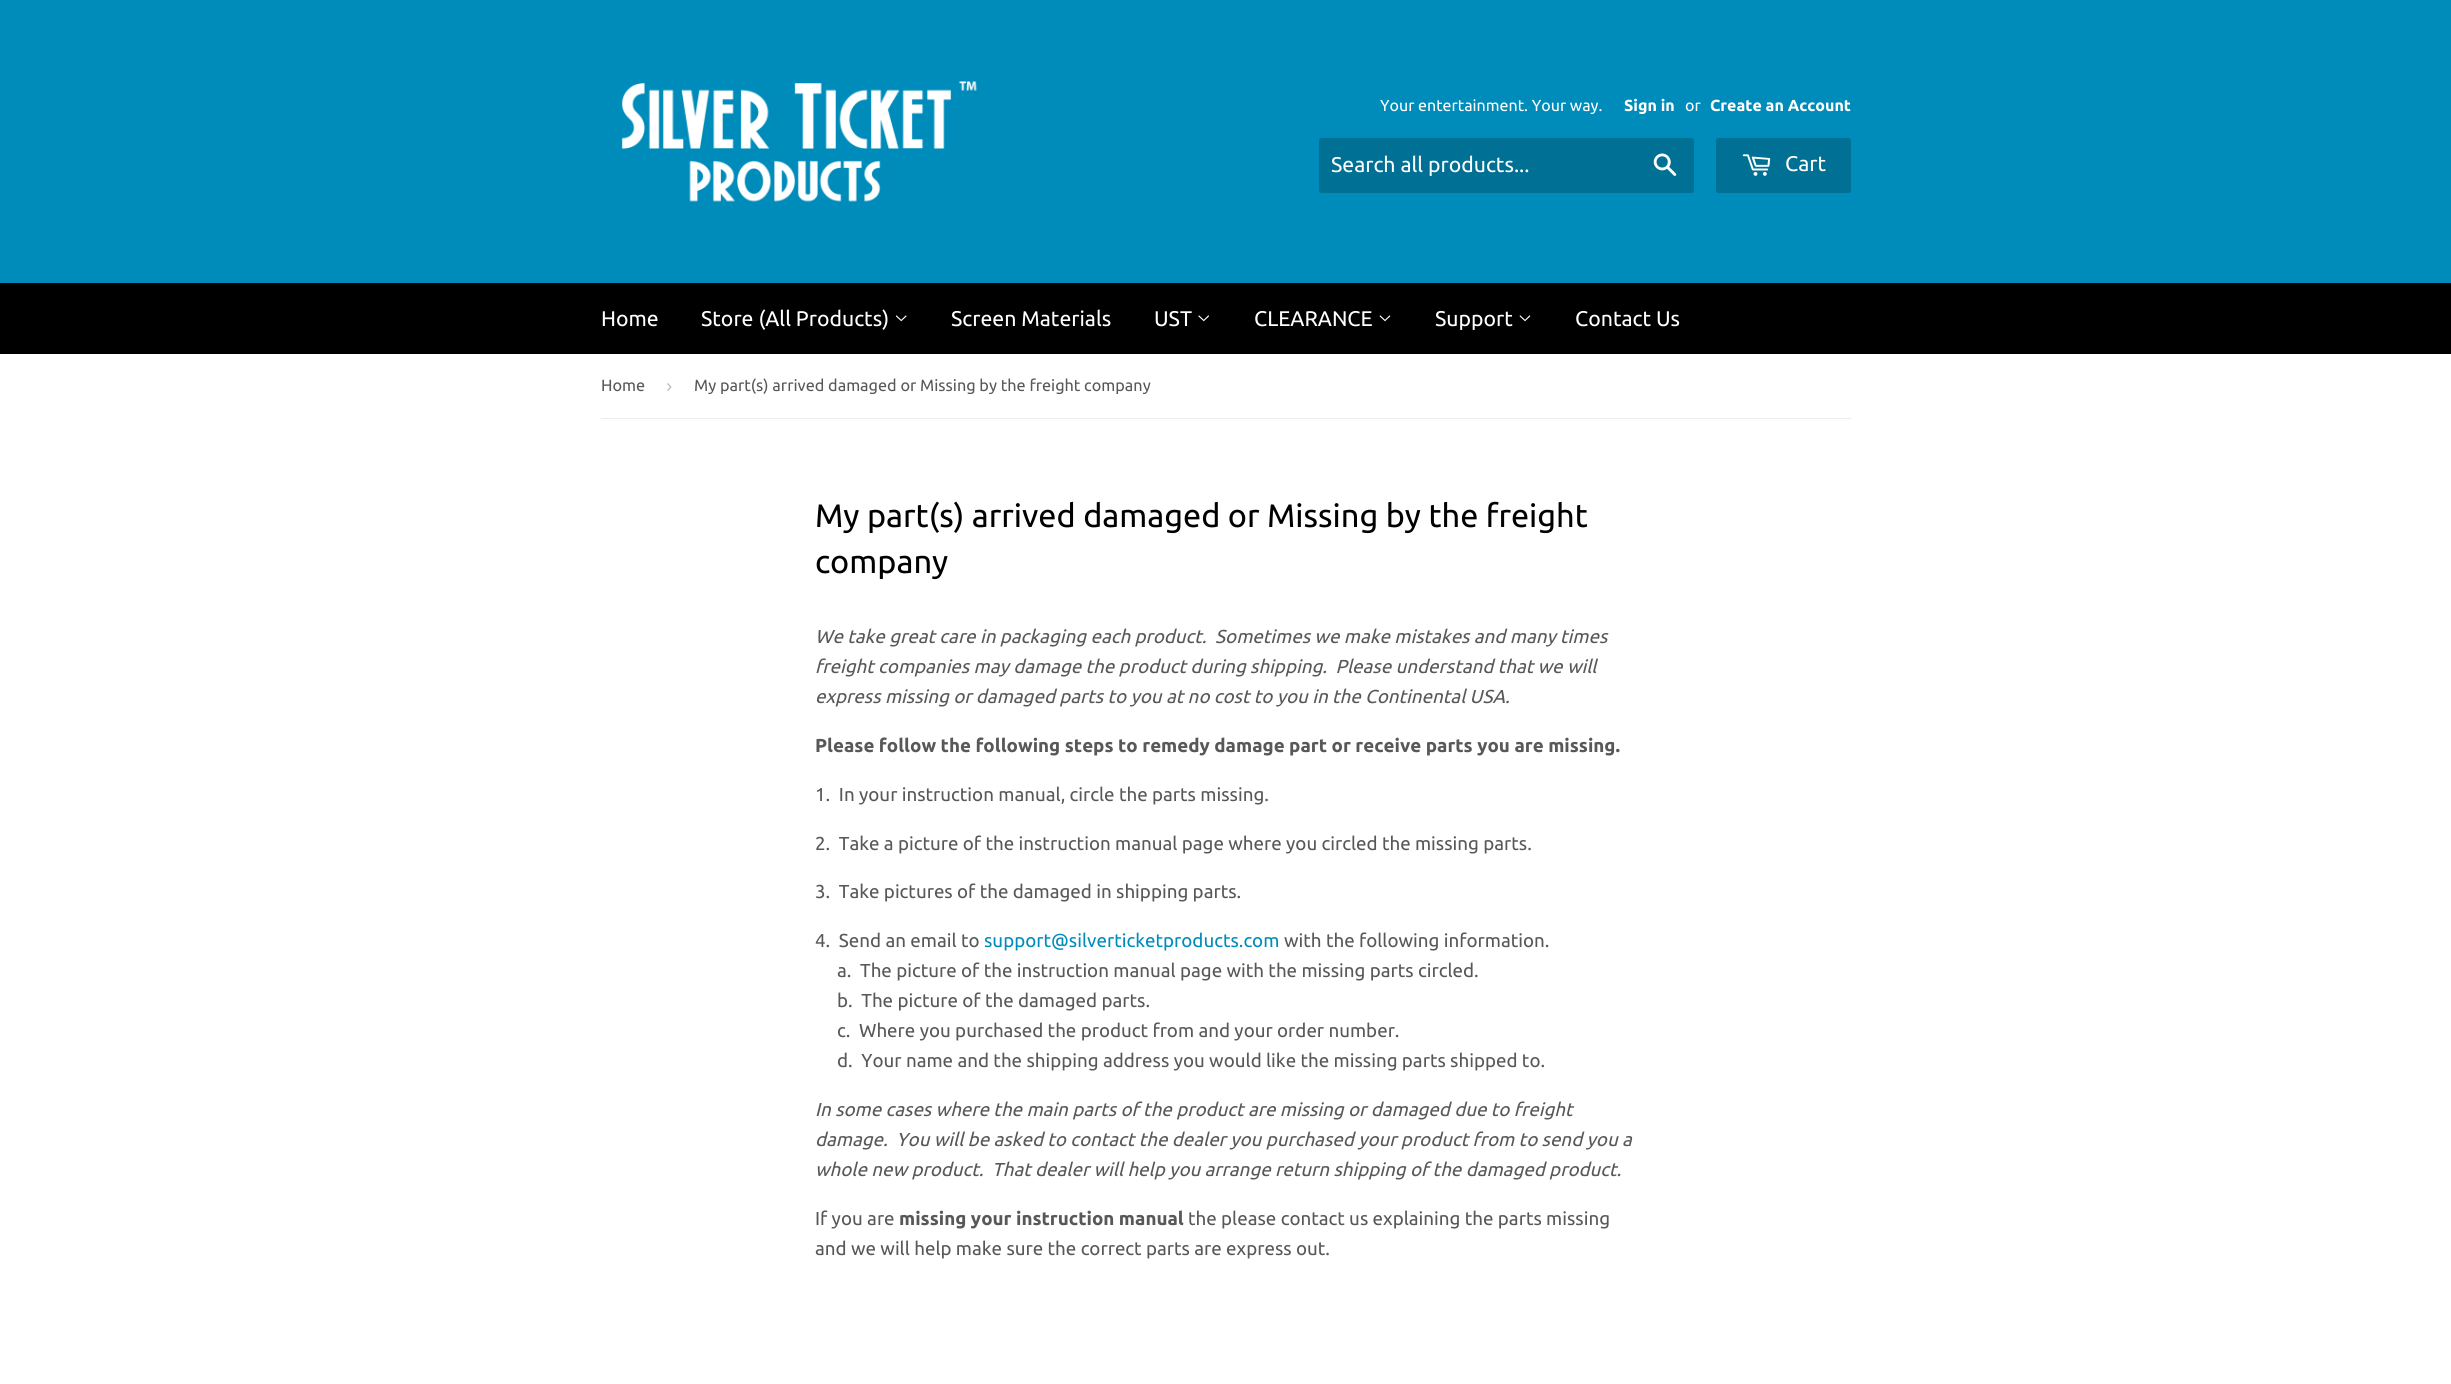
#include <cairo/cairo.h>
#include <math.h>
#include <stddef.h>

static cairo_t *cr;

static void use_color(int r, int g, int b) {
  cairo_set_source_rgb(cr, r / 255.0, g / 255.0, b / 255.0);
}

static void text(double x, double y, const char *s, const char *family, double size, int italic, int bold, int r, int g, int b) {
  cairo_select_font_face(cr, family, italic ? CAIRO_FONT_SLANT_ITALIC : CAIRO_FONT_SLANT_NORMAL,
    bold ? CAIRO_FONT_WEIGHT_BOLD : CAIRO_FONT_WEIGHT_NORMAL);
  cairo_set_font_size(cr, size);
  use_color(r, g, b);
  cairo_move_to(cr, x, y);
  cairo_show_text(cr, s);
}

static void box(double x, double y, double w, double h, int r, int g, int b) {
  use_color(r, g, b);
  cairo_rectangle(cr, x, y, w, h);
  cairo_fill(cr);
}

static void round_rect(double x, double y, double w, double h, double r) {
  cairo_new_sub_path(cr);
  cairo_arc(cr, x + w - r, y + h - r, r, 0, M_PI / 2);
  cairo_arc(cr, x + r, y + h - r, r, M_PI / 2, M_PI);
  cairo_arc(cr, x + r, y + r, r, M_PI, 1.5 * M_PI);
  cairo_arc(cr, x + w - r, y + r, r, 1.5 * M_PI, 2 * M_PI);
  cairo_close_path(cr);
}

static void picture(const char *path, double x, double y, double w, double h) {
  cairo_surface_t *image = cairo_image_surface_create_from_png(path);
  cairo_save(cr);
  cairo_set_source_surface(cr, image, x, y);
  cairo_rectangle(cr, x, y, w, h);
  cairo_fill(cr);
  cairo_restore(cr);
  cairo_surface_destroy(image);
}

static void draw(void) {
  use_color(255, 255, 255);
  cairo_paint(cr);
  box(0, 0, 2451, 283, 0, 140, 186);
  picture("img_01.png", 621, 81, 356, 121);
  use_color(0, 112, 149);
  round_rect(1319, 138, 375, 55, 2.5);
  cairo_fill(cr);
  picture("img_02.png", 1653, 153, 24, 23);
  round_rect(1716, 138, 135, 55, 2.5);
  cairo_fill(cr);
  picture("img_03.png", 1742, 154, 29, 22);
  box(0, 283, 2451, 71, 0, 0, 0);
  picture("img_04.png", 895, 315, 12, 7);
  picture("img_05.png", 1198, 315, 11, 7);
  picture("img_06.png", 1379, 315, 12, 7);
  picture("img_06.png", 1519, 315, 12, 7);
  box(601, 418, 1250, 1, 236, 236, 236);
  text(1380, 111, "Your entertainment. Your way.", "Ubuntu", 16, 0, 0, 255, 255, 255);
  text(1624, 111, "Sign in", "Ubuntu", 16, 0, 1, 255, 255, 255);
  text(1685, 111, "or", "Ubuntu", 16, 0, 0, 255, 255, 255);
  text(1710, 111, "Create an Account", "Ubuntu", 16, 0, 1, 255, 255, 255);
  text(1331, 172, "Search all products...", "Ubuntu", 21.25, 0, 0, 255, 255, 255);
  text(1785, 171, "Cart", "Ubuntu", 21.25, 0, 0, 255, 255, 255);
  text(601, 326, "Home", "Ubuntu", 21.25, 0, 0, 255, 255, 255);
  text(701, 326, "Store (All Products)", "Ubuntu", 21.25, 0, 0, 255, 255, 255);
  text(951, 326, "Screen Materials", "Ubuntu", 21.25, 0, 0, 255, 255, 255);
  text(1154, 326, "UST", "Ubuntu", 21.25, 0, 0, 255, 255, 255);
  text(1254, 326, "CLEARANCE", "Ubuntu", 21.25, 0, 0, 255, 255, 255);
  text(1435, 326, "Support", "Ubuntu", 21.25, 0, 0, 255, 255, 255);
  text(1575, 326, "Contact Us", "Ubuntu", 21.25, 0, 0, 255, 255, 255);
  text(601, 391, "Home", "Ubuntu", 16.25, 0, 0, 88, 88, 88);
  text(666, 392, "›", "Liberation Sans", 18.75, 0, 0, 187, 187, 187);
  text(694, 391, "My part(s) arrived damaged or Missing by the freight company", "Ubuntu", 16.25, 0, 0, 88, 88, 88);
  text(815, 527, "My part(s) arrived damaged or Missing by the freight", "Ubuntu", 32.5, 0, 0, 0, 0, 0);
  text(815, 573, "company", "Ubuntu", 32.5, 0, 0, 0, 0, 0);
  text(815, 643, "We take great care in packaging each product.  Sometimes we make mistakes and many times", "Ubuntu", 18.75, 1, 0, 88, 88, 88);
  text(815, 673, "freight companies may damage the product during shipping.  Please understand that we will", "Ubuntu", 18.75, 1, 0, 88, 88, 88);
  text(815, 703, "express missing or damaged parts to you at no cost to you in the Continental USA.", "Ubuntu", 18.75, 1, 0, 88, 88, 88);
  text(815, 752, "Please follow the following steps to remedy damage part or receive parts you are missing.", "Ubuntu", 18.75, 0, 1, 88, 88, 88);
  text(815, 801, "1.  In your instruction manual, circle the parts missing.", "Ubuntu", 18.75, 0, 0, 88, 88, 88);
  text(815, 850, "2.  Take a picture of the instruction manual page where you circled the missing parts.", "Ubuntu", 18.75, 0, 0, 88, 88, 88);
  text(815, 898, "3.  Take pictures of the damaged in shipping parts.", "Ubuntu", 18.75, 0, 0, 88, 88, 88);
  text(815, 947, "4.  Send an email to", "Ubuntu", 18.75, 0, 0, 88, 88, 88);
  text(984, 947, "support@silverticketproducts.com", "Ubuntu", 18.75, 0, 0, 0, 140, 186);
  text(1284, 947, "with the following information.", "Ubuntu", 18.75, 0, 0, 88, 88, 88);
  text(837, 977, "a.  The picture of the instruction manual page with the missing parts circled.", "Ubuntu", 18.75, 0, 0, 88, 88, 88);
  text(837, 1007, "b.  The picture of the damaged parts.", "Ubuntu", 18.75, 0, 0, 88, 88, 88);
  text(837, 1037, "c.  Where you purchased the product from and your order number.", "Ubuntu", 18.75, 0, 0, 88, 88, 88);
  text(837, 1067, "d.  Your name and the shipping address you would like the missing parts shipped to.", "Ubuntu", 18.75, 0, 0, 88, 88, 88);
  text(815, 1116, "In some cases where the main parts of the product are missing or damaged due to freight", "Ubuntu", 18.75, 1, 0, 88, 88, 88);
  text(815, 1146, "damage.  You will be asked to contact the dealer you purchased your product from to send you a", "Ubuntu", 18.75, 1, 0, 88, 88, 88);
  text(815, 1176, "whole new product.  That dealer will help you arrange return shipping of the damaged product.", "Ubuntu", 18.75, 1, 0, 88, 88, 88);
  text(815, 1225, "If you are", "Ubuntu", 18.75, 0, 0, 88, 88, 88);
  text(899, 1225, "missing your instruction manual", "Ubuntu", 18.75, 0, 1, 88, 88, 88);
  text(1188, 1225, "the please contact us explaining the parts missing", "Ubuntu", 18.75, 0, 0, 88, 88, 88);
  text(815, 1255, "and we will help make sure the correct parts are express out.", "Ubuntu", 18.75, 0, 0, 88, 88, 88);
}

int main(void) {
  cairo_surface_t *surface = cairo_image_surface_create(CAIRO_FORMAT_RGB24, 2451, 1384);
  cr = cairo_create(surface);
  cairo_font_options_t *options = cairo_font_options_create();
  cairo_font_options_set_hint_metrics(options, CAIRO_HINT_METRICS_OFF);
  cairo_font_options_set_hint_style(options, CAIRO_HINT_STYLE_NONE);
  cairo_set_font_options(cr, options);
  cairo_set_miter_limit(cr, 4);
  draw();
  cairo_surface_write_to_png(surface, "out.png");
  cairo_font_options_destroy(options);
  cairo_destroy(cr);
  cairo_surface_destroy(surface);
  return 0;
}
